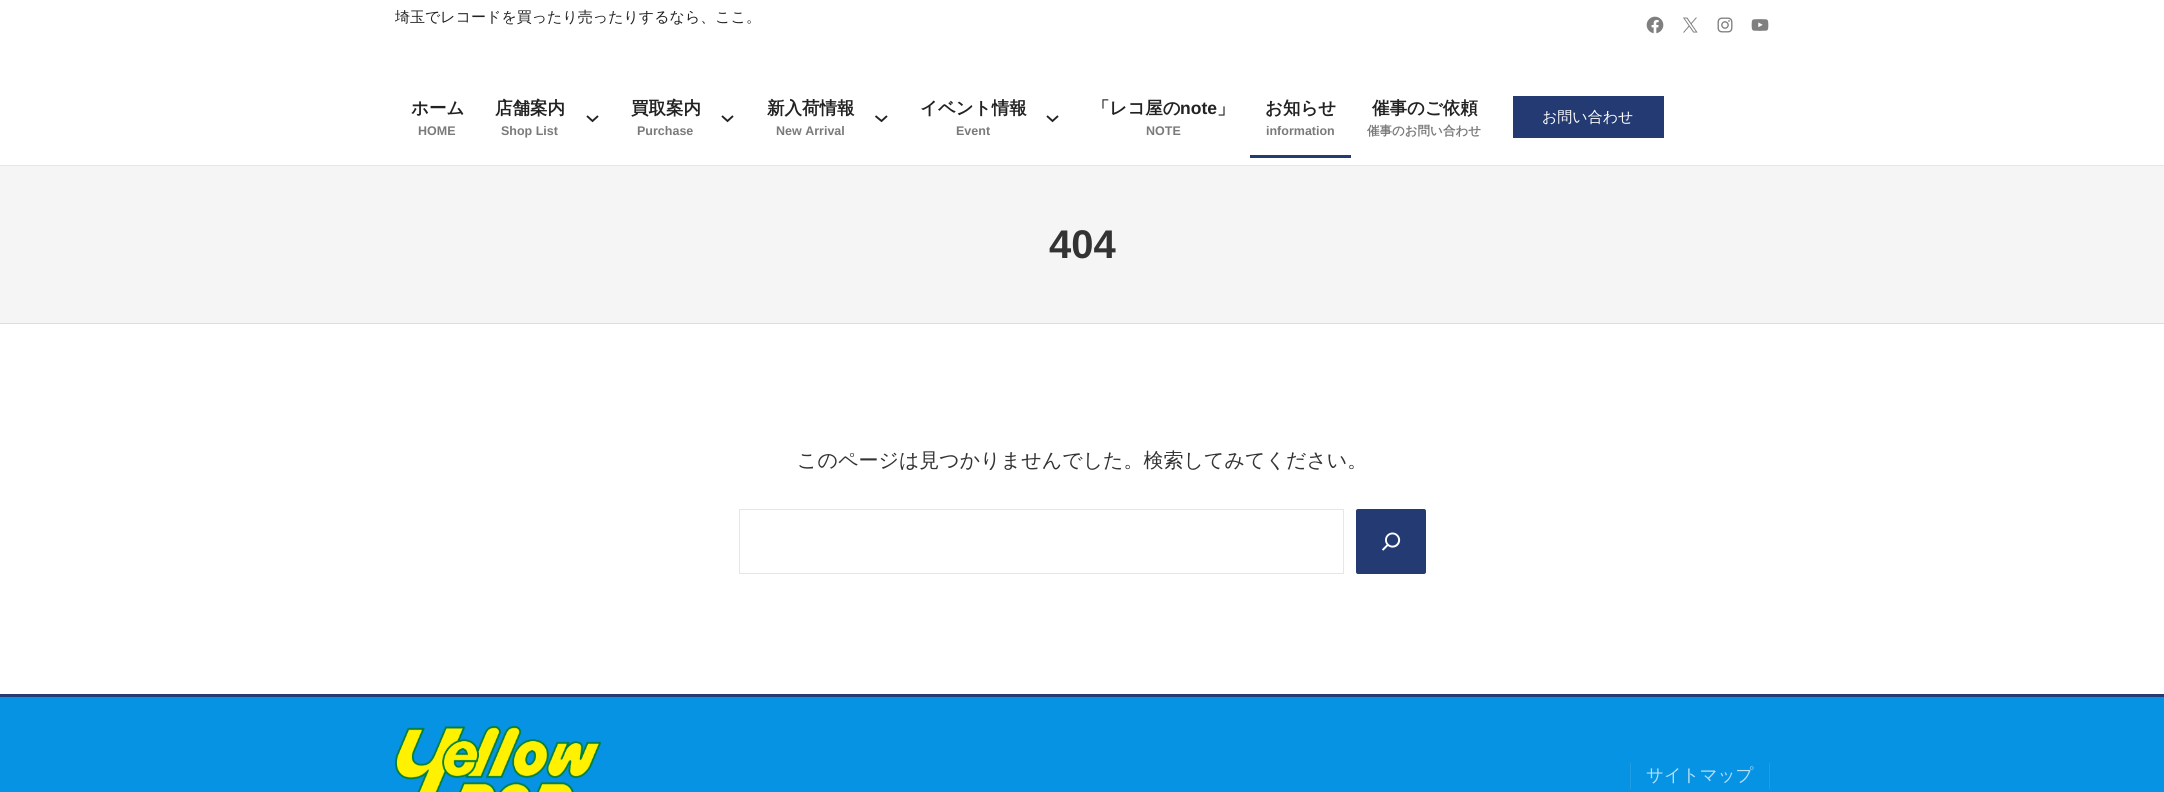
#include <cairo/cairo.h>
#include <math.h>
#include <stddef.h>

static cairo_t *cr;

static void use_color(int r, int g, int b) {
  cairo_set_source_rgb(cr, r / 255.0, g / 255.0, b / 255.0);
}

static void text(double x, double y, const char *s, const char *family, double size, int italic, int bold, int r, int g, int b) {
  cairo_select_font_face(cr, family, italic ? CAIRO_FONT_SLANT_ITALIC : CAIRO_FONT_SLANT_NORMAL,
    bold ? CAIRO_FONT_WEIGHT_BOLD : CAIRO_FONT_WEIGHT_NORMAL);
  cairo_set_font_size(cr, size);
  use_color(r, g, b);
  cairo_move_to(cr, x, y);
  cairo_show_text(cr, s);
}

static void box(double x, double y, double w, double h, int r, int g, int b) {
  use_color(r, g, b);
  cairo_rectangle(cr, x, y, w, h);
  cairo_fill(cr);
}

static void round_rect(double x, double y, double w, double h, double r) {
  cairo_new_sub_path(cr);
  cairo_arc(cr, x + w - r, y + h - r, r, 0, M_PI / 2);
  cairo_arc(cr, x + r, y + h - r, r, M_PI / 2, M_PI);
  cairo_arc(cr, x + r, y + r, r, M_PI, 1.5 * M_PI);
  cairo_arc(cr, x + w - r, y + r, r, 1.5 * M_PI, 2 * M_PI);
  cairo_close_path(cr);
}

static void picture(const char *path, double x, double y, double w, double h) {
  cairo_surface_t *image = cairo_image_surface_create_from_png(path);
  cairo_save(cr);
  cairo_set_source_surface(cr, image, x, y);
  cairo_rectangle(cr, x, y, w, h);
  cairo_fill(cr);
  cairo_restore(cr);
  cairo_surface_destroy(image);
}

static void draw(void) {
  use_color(255, 255, 255);
  cairo_paint(cr);
  picture("img_01.png", 1646, 16, 18, 18);
  picture("img_02.png", 1683, 17, 15, 16);
  picture("img_03.png", 1717, 17, 16, 16);
  picture("img_04.png", 1751, 19, 18, 12);
  cairo_new_path(cr);
  cairo_move_to(cr, 587, 116);
  cairo_line_to(cr, 592.5, 121);
  cairo_line_to(cr, 598, 116);
  use_color(34, 34, 34);
  cairo_set_line_width(cr, 1.9);
  cairo_stroke(cr);
  cairo_new_path(cr);
  cairo_move_to(cr, 722, 116);
  cairo_line_to(cr, 727.5, 121);
  cairo_line_to(cr, 733, 116);
  cairo_stroke(cr);
  cairo_new_path(cr);
  cairo_move_to(cr, 875.5, 116);
  cairo_line_to(cr, 881.5, 121);
  cairo_line_to(cr, 887, 116);
  cairo_stroke(cr);
  cairo_new_path(cr);
  cairo_move_to(cr, 1047, 116);
  cairo_line_to(cr, 1052.5, 121);
  cairo_line_to(cr, 1058, 116);
  cairo_stroke(cr);
  box(1250, 155, 101, 3, 35, 58, 115);
  box(1513, 96, 151, 42, 35, 58, 115);
  box(0, 165, 2164, 1, 230, 230, 230);
  box(0, 166, 2164, 157, 245, 245, 245);
  box(0, 323, 2164, 1, 221, 221, 221);
  cairo_rectangle(cr, 739.5, 509.5, 604, 64);
  use_color(230, 230, 230);
  cairo_set_line_width(cr, 1);
  cairo_stroke(cr);
  use_color(35, 58, 115);
  round_rect(1356, 509, 70, 65, 2);
  cairo_fill(cr);
  picture("img_05.png", 1382, 532, 19, 19);
  box(0, 697, 2164, 95, 6, 147, 227);
  box(0, 694, 2164, 3, 35, 58, 115);
  picture("img_06.png", 395, 726, 206, 66);
  box(1769, 763, 1, 26, 31, 158, 230);
  box(1630, 763, 1, 26, 31, 158, 230);
  text(395, 22, "埼玉でレコードを買ったり売ったりするなら、ここ。", "WenQuanYi Zen Hei Medium", 15, 0, 0, 34, 34, 34);
  text(411, 114, "ホーム", "WenQuanYi Zen Hei", 17.5, 0, 1, 34, 34, 34);
  text(418, 135, "HOME", "Liberation Sans", 12.5, 0, 1, 122, 122, 122);
  text(495, 114, "店舗案内", "WenQuanYi Zen Hei", 17.5, 0, 1, 34, 34, 34);
  text(501, 135, "Shop List", "Liberation Sans", 12.5, 0, 1, 122, 122, 122);
  text(631, 114, "買取案内", "WenQuanYi Zen Hei", 17.5, 0, 1, 34, 34, 34);
  text(637, 135, "Purchase", "Liberation Sans", 12.5, 0, 1, 122, 122, 122);
  text(767, 114, "新入荷情報", "WenQuanYi Zen Hei", 17.5, 0, 1, 34, 34, 34);
  text(776, 135, "New Arrival", "Liberation Sans", 12.5, 0, 1, 122, 122, 122);
  text(920, 114, "イベント情報", "WenQuanYi Zen Hei", 17.5, 0, 1, 34, 34, 34);
  text(956, 135, "Event", "Liberation Sans", 12.5, 0, 1, 122, 122, 122);
  text(1092, 114, "「レコ屋の", "WenQuanYi Zen Hei", 17.5, 0, 1, 34, 34, 34);
  text(1180, 114, "note", "Liberation Sans", 17.5, 0, 1, 34, 34, 34);
  text(1217, 114, "」", "WenQuanYi Zen Hei", 17.5, 0, 1, 34, 34, 34);
  text(1146, 135, "NOTE", "Liberation Sans", 12.5, 0, 1, 122, 122, 122);
  text(1265, 114, "お知らせ", "WenQuanYi Zen Hei", 17.5, 0, 1, 34, 34, 34);
  text(1266, 135, "information", "Liberation Sans", 12.5, 0, 1, 122, 122, 122);
  text(1372, 114, "催事のご依頼", "WenQuanYi Zen Hei", 17.5, 0, 1, 34, 34, 34);
  text(1367, 135, "催事のお問い合わせ", "WenQuanYi Zen Hei", 12.5, 0, 1, 122, 122, 122);
  text(1542, 122, "お問い合わせ", "WenQuanYi Zen Hei Medium", 15, 0, 0, 255, 255, 255);
  text(1049, 258, "404", "Liberation Sans", 40, 0, 1, 51, 51, 51);
  text(797, 467, "このページは見つかりませんでした。検索してみてください。", "WenQuanYi Zen Hei Medium", 20, 0, 0, 51, 51, 51);
  text(1646, 781, "サイトマップ", "WenQuanYi Zen Hei Medium", 17.5, 0, 0, 180, 223, 247);
}

int main(void) {
  cairo_surface_t *surface = cairo_image_surface_create(CAIRO_FORMAT_RGB24, 2164, 792);
  cr = cairo_create(surface);
  cairo_font_options_t *options = cairo_font_options_create();
  cairo_font_options_set_hint_metrics(options, CAIRO_HINT_METRICS_OFF);
  cairo_font_options_set_hint_style(options, CAIRO_HINT_STYLE_NONE);
  cairo_set_font_options(cr, options);
  cairo_set_miter_limit(cr, 4);
  draw();
  cairo_surface_write_to_png(surface, "out.png");
  cairo_font_options_destroy(options);
  cairo_destroy(cr);
  cairo_surface_destroy(surface);
  return 0;
}
